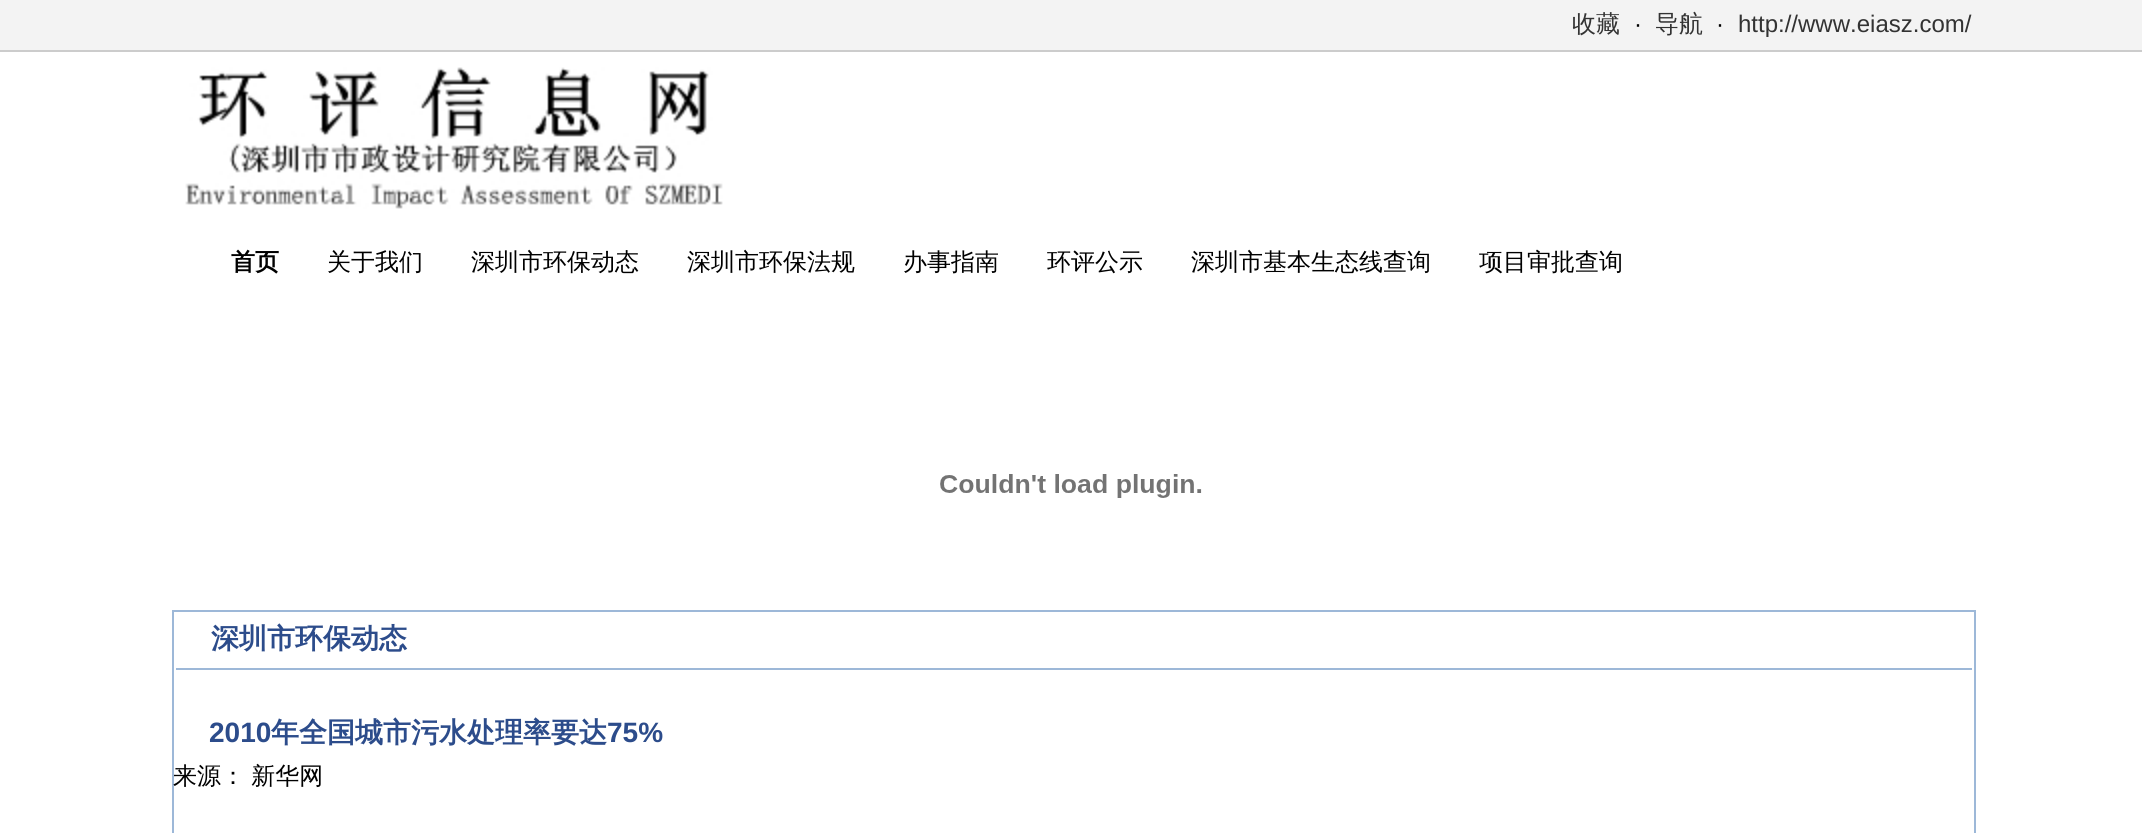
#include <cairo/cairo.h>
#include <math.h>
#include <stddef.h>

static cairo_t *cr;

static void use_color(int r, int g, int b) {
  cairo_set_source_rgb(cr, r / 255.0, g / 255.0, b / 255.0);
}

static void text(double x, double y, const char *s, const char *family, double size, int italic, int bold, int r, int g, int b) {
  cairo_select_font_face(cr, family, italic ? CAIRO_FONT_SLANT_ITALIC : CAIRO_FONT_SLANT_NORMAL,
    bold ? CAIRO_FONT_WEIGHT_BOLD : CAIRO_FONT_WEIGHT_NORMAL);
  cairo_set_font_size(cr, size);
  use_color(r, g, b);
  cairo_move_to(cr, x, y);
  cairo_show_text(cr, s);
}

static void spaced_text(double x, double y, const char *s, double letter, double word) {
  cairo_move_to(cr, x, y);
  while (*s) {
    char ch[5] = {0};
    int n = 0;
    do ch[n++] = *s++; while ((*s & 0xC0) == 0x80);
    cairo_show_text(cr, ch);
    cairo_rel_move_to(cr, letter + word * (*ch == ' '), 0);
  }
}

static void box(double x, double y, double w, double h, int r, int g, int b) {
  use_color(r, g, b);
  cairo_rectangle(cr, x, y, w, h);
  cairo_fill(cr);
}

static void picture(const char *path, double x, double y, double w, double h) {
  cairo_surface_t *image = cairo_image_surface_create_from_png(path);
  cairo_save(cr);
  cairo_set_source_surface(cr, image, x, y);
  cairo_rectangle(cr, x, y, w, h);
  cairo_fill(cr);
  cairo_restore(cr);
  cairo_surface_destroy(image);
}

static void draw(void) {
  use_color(255, 255, 255);
  cairo_paint(cr);
  box(0, 0, 2142, 50, 243, 243, 243);
  box(0, 50, 2142, 2, 204, 204, 204);
  picture("img_01.png", 185, 67, 538, 142);
  picture("img_02.png", 940, 474, 262, 24);
  cairo_rectangle(cr, 173, 611, 1802, 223);
  use_color(157, 184, 216);
  cairo_stroke(cr);
  box(176, 668, 1796, 2, 157, 184, 216);
  text(1572, 32, "收藏", "WenQuanYi Zen Hei Medium", 24, 0, 0, 51, 51, 51);
  text(1634, 32, "·", "Liberation Sans", 24, 0, 0, 0, 0, 0);
  text(1655, 32, "导航", "WenQuanYi Zen Hei Medium", 24, 0, 0, 51, 51, 51);
  text(1716, 32, "·", "Liberation Sans", 24, 0, 0, 0, 0, 0);
  text(1738, 32, "http://www.eiasz.com/", "Liberation Sans", 24, 0, 0, 51, 51, 51);
  text(231, 270, "首页", "WenQuanYi Zen Hei", 24, 0, 1, 0, 0, 0);
  text(327, 270, "关于我们", "WenQuanYi Zen Hei Medium", 24, 0, 0, 0, 0, 0);
  text(471, 270, "深圳市环保动态", "WenQuanYi Zen Hei Medium", 24, 0, 0, 0, 0, 0);
  text(687, 270, "深圳市环保法规", "WenQuanYi Zen Hei Medium", 24, 0, 0, 0, 0, 0);
  text(903, 270, "办事指南", "WenQuanYi Zen Hei Medium", 24, 0, 0, 0, 0, 0);
  text(1047, 270, "环评公示", "WenQuanYi Zen Hei Medium", 24, 0, 0, 0, 0, 0);
  text(1191, 270, "深圳市基本生态线查询", "WenQuanYi Zen Hei Medium", 24, 0, 0, 0, 0, 0);
  text(1479, 270, "项目审批查询", "WenQuanYi Zen Hei Medium", 24, 0, 0, 0, 0, 0);
  text(211, 648, "深圳市环保动态", "WenQuanYi Zen Hei", 28, 0, 1, 44, 76, 139);
  text(209, 742, "2010", "Liberation Sans", 28, 0, 1, 44, 76, 139);
  text(271, 742, "年全国城市污水处理率要达", "WenQuanYi Zen Hei", 28, 0, 1, 44, 76, 139);
  text(607, 742, "75%", "Liberation Sans", 28, 0, 1, 44, 76, 139);
  cairo_select_font_face(cr, "WenQuanYi Zen Hei Medium", CAIRO_FONT_SLANT_NORMAL, CAIRO_FONT_WEIGHT_NORMAL);
  cairo_set_font_size(cr, 24);
  use_color(0, 0, 0);
  spaced_text(173, 784, "来源： 新华网", 0, -1);
}

int main(void) {
  cairo_surface_t *surface = cairo_image_surface_create(CAIRO_FORMAT_RGB24, 2142, 833);
  cr = cairo_create(surface);
  cairo_font_options_t *options = cairo_font_options_create();
  cairo_font_options_set_hint_metrics(options, CAIRO_HINT_METRICS_OFF);
  cairo_font_options_set_hint_style(options, CAIRO_HINT_STYLE_NONE);
  cairo_set_font_options(cr, options);
  cairo_set_miter_limit(cr, 4);
  draw();
  cairo_surface_write_to_png(surface, "out.png");
  cairo_font_options_destroy(options);
  cairo_destroy(cr);
  cairo_surface_destroy(surface);
  return 0;
}
